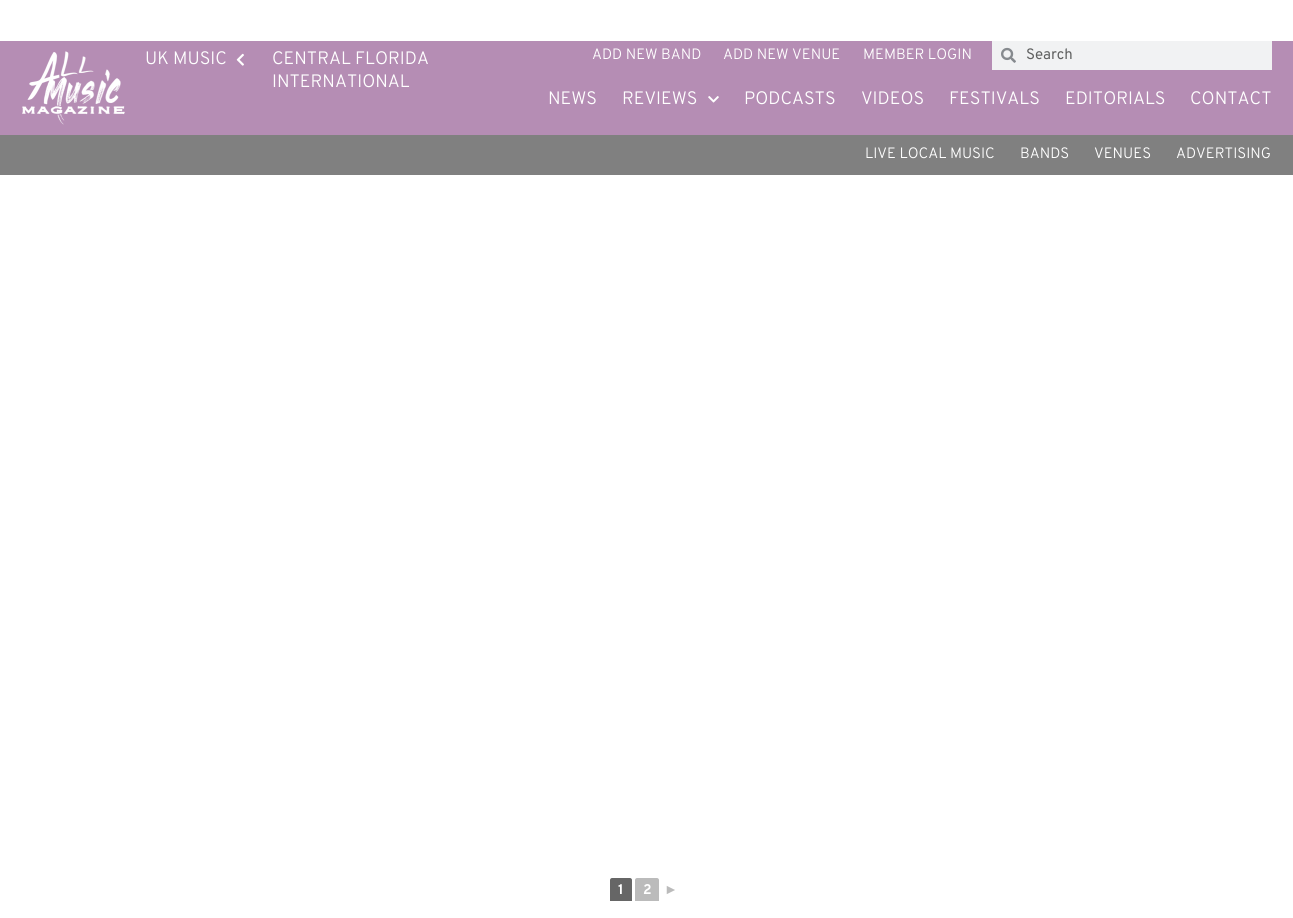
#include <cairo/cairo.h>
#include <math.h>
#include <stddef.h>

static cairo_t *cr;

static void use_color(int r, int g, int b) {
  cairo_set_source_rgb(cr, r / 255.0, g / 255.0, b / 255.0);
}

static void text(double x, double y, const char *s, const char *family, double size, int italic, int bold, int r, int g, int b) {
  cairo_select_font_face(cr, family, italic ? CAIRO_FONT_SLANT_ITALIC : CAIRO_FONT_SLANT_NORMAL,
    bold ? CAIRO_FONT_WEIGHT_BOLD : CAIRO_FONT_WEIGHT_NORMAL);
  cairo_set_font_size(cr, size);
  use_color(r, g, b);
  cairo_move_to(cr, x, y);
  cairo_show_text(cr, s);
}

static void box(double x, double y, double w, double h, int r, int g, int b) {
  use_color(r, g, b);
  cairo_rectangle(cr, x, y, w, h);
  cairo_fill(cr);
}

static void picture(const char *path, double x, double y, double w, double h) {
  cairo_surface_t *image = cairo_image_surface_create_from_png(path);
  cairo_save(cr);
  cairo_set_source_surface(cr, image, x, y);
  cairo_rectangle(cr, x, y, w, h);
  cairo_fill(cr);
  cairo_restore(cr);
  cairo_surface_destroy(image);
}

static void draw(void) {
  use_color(255, 255, 255);
  cairo_paint(cr);
  box(0, 41, 1293, 94, 181, 141, 180);
  picture("img_01.png", 22, 51, 103, 74);
  picture("img_02.png", 236, 53, 8, 13);
  box(992, 41, 280, 29, 241, 242, 243);
  picture("img_03.png", 1001, 47, 15, 16);
  picture("img_04.png", 708, 96, 11, 7);
  box(0, 135, 1293, 40, 128, 128, 128);
  use_color(102, 102, 102);
  cairo_new_path(cr);
  cairo_move_to(cr, 612, 878);
  cairo_line_to(cr, 630, 878);
  cairo_curve_to(cr, 631, 878, 632, 879, 632, 880);
  cairo_line_to(cr, 632, 901);
  cairo_line_to(cr, 610, 901);
  cairo_line_to(cr, 610, 880);
  cairo_curve_to(cr, 610, 879, 611, 878, 612, 878);
  cairo_close_path(cr);
  cairo_fill(cr);
  use_color(187, 187, 187);
  cairo_new_path(cr);
  cairo_move_to(cr, 637, 878);
  cairo_line_to(cr, 657, 878);
  cairo_curve_to(cr, 658, 878, 659, 879, 659, 880);
  cairo_line_to(cr, 659, 901);
  cairo_line_to(cr, 635, 901);
  cairo_line_to(cr, 635, 880);
  cairo_curve_to(cr, 635, 879, 636, 878, 637, 878);
  cairo_close_path(cr);
  cairo_fill(cr);
  text(145, 64, "UK MUSIC", "Overpass Light", 18, 0, 0, 255, 255, 255);
  text(272, 64, "CENTRAL FLORIDA", "Overpass Light", 18, 0, 0, 255, 255, 255);
  text(272, 87, "INTERNATIONAL", "Overpass Light", 18, 0, 0, 255, 255, 255);
  text(592, 59, "ADD NEW BAND", "Overpass Light", 15, 0, 0, 255, 255, 255);
  text(723, 59, "ADD NEW VENUE", "Overpass Light", 15, 0, 0, 255, 255, 255);
  text(863, 59, "MEMBER LOGIN", "Overpass Light", 15, 0, 0, 255, 255, 255);
  text(1026, 59, "Search", "Overpass", 15, 0, 0, 96, 97, 97);
  text(548, 104, "NEWS", "Overpass Light", 18, 0, 0, 255, 255, 255);
  text(622, 104, "REVIEWS", "Overpass Light", 18, 0, 0, 255, 255, 255);
  text(744, 104, "PODCASTS", "Overpass Light", 18, 0, 0, 255, 255, 255);
  text(861, 104, "VIDEOS", "Overpass Light", 18, 0, 0, 255, 255, 255);
  text(949, 104, "FESTIVALS", "Overpass Light", 18, 0, 0, 255, 255, 255);
  text(1065, 104, "EDITORIALS", "Overpass Light", 18, 0, 0, 255, 255, 255);
  text(1190, 104, "CONTACT", "Overpass Light", 18, 0, 0, 255, 255, 255);
  text(865, 158, "LIVE LOCAL MUSIC", "Overpass Light", 15, 0, 0, 255, 255, 255);
  text(1020, 158, "BANDS", "Overpass Light", 15, 0, 0, 255, 255, 255);
  text(1094, 158, "VENUES", "Overpass Light", 15, 0, 0, 255, 255, 255);
  text(1176, 158, "ADVERTISING", "Overpass Light", 15, 0, 0, 255, 255, 255);
  text(618, 894, "1", "Overpass", 14, 0, 1, 255, 255, 255);
  text(643, 894, "2", "Overpass", 14, 0, 1, 255, 255, 255);
  text(664, 894, "►", "Liberation Sans", 14, 0, 1, 187, 187, 187);
}

int main(void) {
  cairo_surface_t *surface = cairo_image_surface_create(CAIRO_FORMAT_RGB24, 1293, 918);
  cr = cairo_create(surface);
  cairo_font_options_t *options = cairo_font_options_create();
  cairo_font_options_set_hint_metrics(options, CAIRO_HINT_METRICS_OFF);
  cairo_font_options_set_hint_style(options, CAIRO_HINT_STYLE_NONE);
  cairo_set_font_options(cr, options);
  cairo_set_miter_limit(cr, 4);
  draw();
  cairo_surface_write_to_png(surface, "out.png");
  cairo_font_options_destroy(options);
  cairo_destroy(cr);
  cairo_surface_destroy(surface);
  return 0;
}
